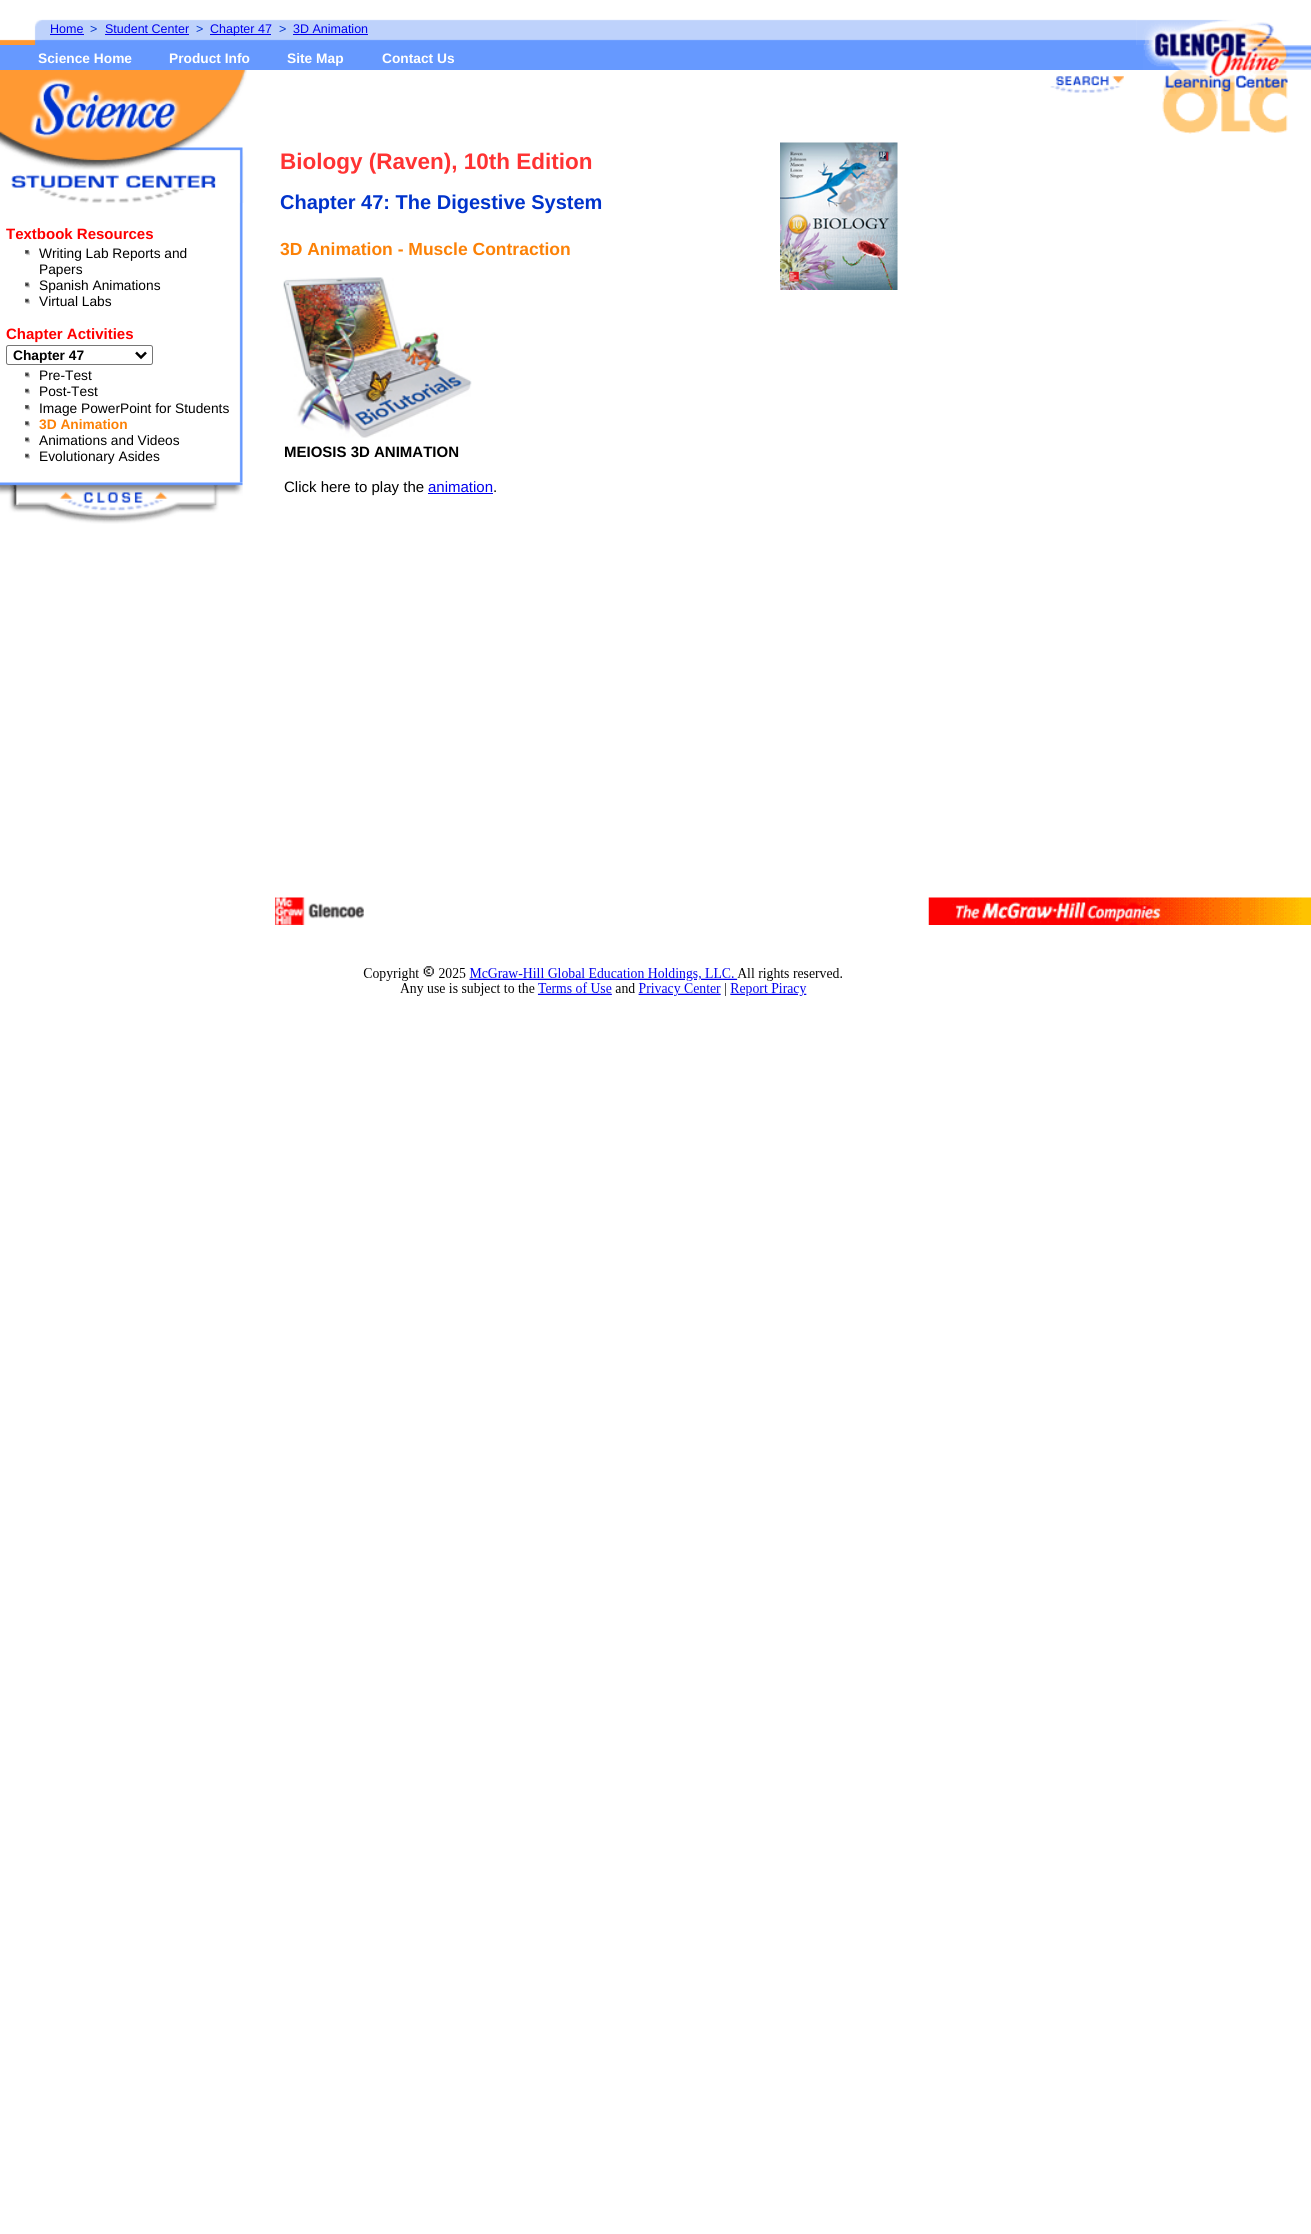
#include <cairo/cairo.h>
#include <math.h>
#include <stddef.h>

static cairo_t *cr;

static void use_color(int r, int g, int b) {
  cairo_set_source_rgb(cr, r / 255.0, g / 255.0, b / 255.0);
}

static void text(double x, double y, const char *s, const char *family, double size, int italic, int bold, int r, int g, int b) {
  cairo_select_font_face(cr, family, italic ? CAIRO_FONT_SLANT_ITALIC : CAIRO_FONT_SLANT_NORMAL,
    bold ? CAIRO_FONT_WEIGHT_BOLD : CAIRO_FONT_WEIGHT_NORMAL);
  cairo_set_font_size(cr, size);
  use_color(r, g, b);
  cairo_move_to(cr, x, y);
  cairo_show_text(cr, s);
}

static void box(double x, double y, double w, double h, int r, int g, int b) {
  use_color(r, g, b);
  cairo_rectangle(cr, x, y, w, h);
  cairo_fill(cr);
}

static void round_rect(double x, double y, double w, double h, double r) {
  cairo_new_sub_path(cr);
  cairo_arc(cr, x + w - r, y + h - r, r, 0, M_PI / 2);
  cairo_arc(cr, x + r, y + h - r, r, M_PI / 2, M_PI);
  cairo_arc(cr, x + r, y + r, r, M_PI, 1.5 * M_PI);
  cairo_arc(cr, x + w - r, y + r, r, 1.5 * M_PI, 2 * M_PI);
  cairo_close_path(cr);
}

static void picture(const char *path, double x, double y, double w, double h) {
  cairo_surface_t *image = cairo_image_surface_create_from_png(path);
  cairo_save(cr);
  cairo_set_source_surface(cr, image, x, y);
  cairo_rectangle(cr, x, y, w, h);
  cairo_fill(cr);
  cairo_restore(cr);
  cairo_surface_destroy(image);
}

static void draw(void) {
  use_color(255, 255, 255);
  cairo_paint(cr);
  picture("img_01.png", 42, 19, 1095, 26);
  picture("img_02.png", 0, 19, 42, 26);
  box(50, 34, 34, 1, 0, 0, 238);
  box(105, 34, 84, 1, 0, 0, 238);
  box(210, 34, 61, 1, 0, 0, 238);
  box(293, 34, 75, 1, 0, 0, 238);
  picture("img_03.png", 1136, 19, 1, 26);
  picture("img_04.png", 1136, 19, 175, 26);
  box(0, 45, 1143, 25, 102, 153, 255);
  picture("img_05.png", 1143, 45, 168, 25);
  picture("img_06.png", 1050, 76, 74, 17);
  picture("img_07.png", 1162, 70, 126, 64);
  picture("img_08.png", 0, 70, 247, 100);
  picture("img_09.png", 239, 203, 4, 280);
  picture("img_10.png", 11, 170, 233, 33);
  picture("img_11.png", 25, 250, 5, 6);
  picture("img_12.png", 25, 282, 5, 6);
  picture("img_13.png", 25, 298, 5, 6);
  round_rect(6.5, 345.5, 146, 19, 2);
  use_color(118, 118, 118);
  cairo_set_line_width(cr, 1);
  cairo_stroke(cr);
  cairo_new_path(cr);
  cairo_move_to(cr, 136, 352.5);
  cairo_line_to(cr, 141, 357.5);
  cairo_line_to(cr, 146, 352.5);
  use_color(0, 0, 0);
  cairo_set_line_width(cr, 2.5);
  cairo_stroke(cr);
  picture("img_12.png", 25, 372, 5, 6);
  picture("img_13.png", 25, 388, 5, 6);
  picture("img_11.png", 25, 405, 5, 6);
  picture("img_14.png", 25, 421, 5, 6);
  picture("img_12.png", 25, 437, 5, 6);
  picture("img_13.png", 25, 453, 5, 6);
  picture("img_15.png", 0, 482, 243, 42);
  picture("img_16.png", 283, 277, 189, 161);
  box(428, 493, 65, 1, 0, 0, 238);
  picture("img_17.png", 780, 142, 118, 148);
  picture("img_18.png", 275, 897, 89, 28);
  picture("img_19.png", 928, 897, 383, 28);
  picture("img_20.png", 363, 966, 479, 30);
  text(50, 33, "Home", "Liberation Sans", 12.5, 0, 0, 0, 0, 238);
  text(90, 33, ">", "Liberation Sans", 12.5, 0, 0, 0, 51, 204);
  text(105, 33, "Student Center", "Liberation Sans", 12.5, 0, 0, 0, 0, 238);
  text(196, 33, ">", "Liberation Sans", 12.5, 0, 0, 0, 51, 204);
  text(210, 33, "Chapter 47", "Liberation Sans", 12.5, 0, 0, 0, 0, 238);
  text(279, 33, ">", "Liberation Sans", 12.5, 0, 0, 0, 51, 204);
  text(293, 33, "3D Animation", "Liberation Sans", 12.5, 0, 0, 0, 0, 238);
  text(38, 63, "Science Home", "Liberation Sans", 13.75, 0, 1, 255, 255, 255);
  text(169, 63, "Product Info", "Liberation Sans", 13.75, 0, 1, 255, 255, 255);
  text(287, 63, "Site Map", "Liberation Sans", 13.75, 0, 1, 255, 255, 255);
  text(382, 63, "Contact Us", "Liberation Sans", 13.75, 0, 1, 255, 255, 255);
  text(6, 239, "Textbook Resources", "Liberation Sans", 15, 0, 1, 255, 0, 0);
  text(39, 258, "Writing Lab Reports and", "Liberation Sans", 13.75, 0, 0, 0, 0, 0);
  text(39, 274, "Papers", "Liberation Sans", 13.75, 0, 0, 0, 0, 0);
  text(39, 290, "Spanish Animations", "Liberation Sans", 13.75, 0, 0, 0, 0, 0);
  text(39, 306, "Virtual Labs", "Liberation Sans", 13.75, 0, 0, 0, 0, 0);
  text(6, 339, "Chapter Activities", "Liberation Sans", 15, 0, 1, 255, 0, 0);
  text(13, 360, "Chapter 47", "Liberation Sans", 13.75, 0, 1, 0, 0, 0);
  text(39, 380, "Pre-Test", "Liberation Sans", 13.75, 0, 0, 0, 0, 0);
  text(39, 396, "Post-Test", "Liberation Sans", 13.75, 0, 0, 0, 0, 0);
  text(39, 413, "Image PowerPoint for Students", "Liberation Sans", 13.75, 0, 0, 0, 0, 0);
  text(39, 429, "3D Animation", "Liberation Sans", 13.75, 0, 1, 252, 129, 6);
  text(39, 445, "Animations and Videos", "Liberation Sans", 13.75, 0, 0, 0, 0, 0);
  text(39, 461, "Evolutionary Asides", "Liberation Sans", 13.75, 0, 0, 0, 0, 0);
  text(280, 169, "Biology (Raven), 10th Edition", "Liberation Sans", 22.5, 0, 1, 255, 51, 51);
  text(280, 209, "Chapter 47: The Digestive System", "Liberation Sans", 20, 0, 1, 0, 51, 204);
  text(280, 255, "3D Animation - Muscle Contraction", "Liberation Sans", 17.5, 0, 1, 252, 129, 6);
  text(284, 457, "MEIOSIS 3D ANIMATION", "Liberation Sans", 15, 0, 1, 0, 0, 0);
  text(284, 492, "Click here to play the", "Liberation Sans", 15, 0, 0, 0, 0, 0);
  text(428, 492, "animation", "Liberation Sans", 15, 0, 0, 0, 0, 238);
  text(493, 492, ".", "Liberation Sans", 15, 0, 0, 0, 0, 0);
}

int main(void) {
  cairo_surface_t *surface = cairo_image_surface_create(CAIRO_FORMAT_RGB24, 1311, 2234);
  cr = cairo_create(surface);
  cairo_font_options_t *options = cairo_font_options_create();
  cairo_font_options_set_hint_metrics(options, CAIRO_HINT_METRICS_OFF);
  cairo_font_options_set_hint_style(options, CAIRO_HINT_STYLE_NONE);
  cairo_set_font_options(cr, options);
  cairo_set_miter_limit(cr, 4);
  draw();
  cairo_surface_write_to_png(surface, "out.png");
  cairo_font_options_destroy(options);
  cairo_destroy(cr);
  cairo_surface_destroy(surface);
  return 0;
}
